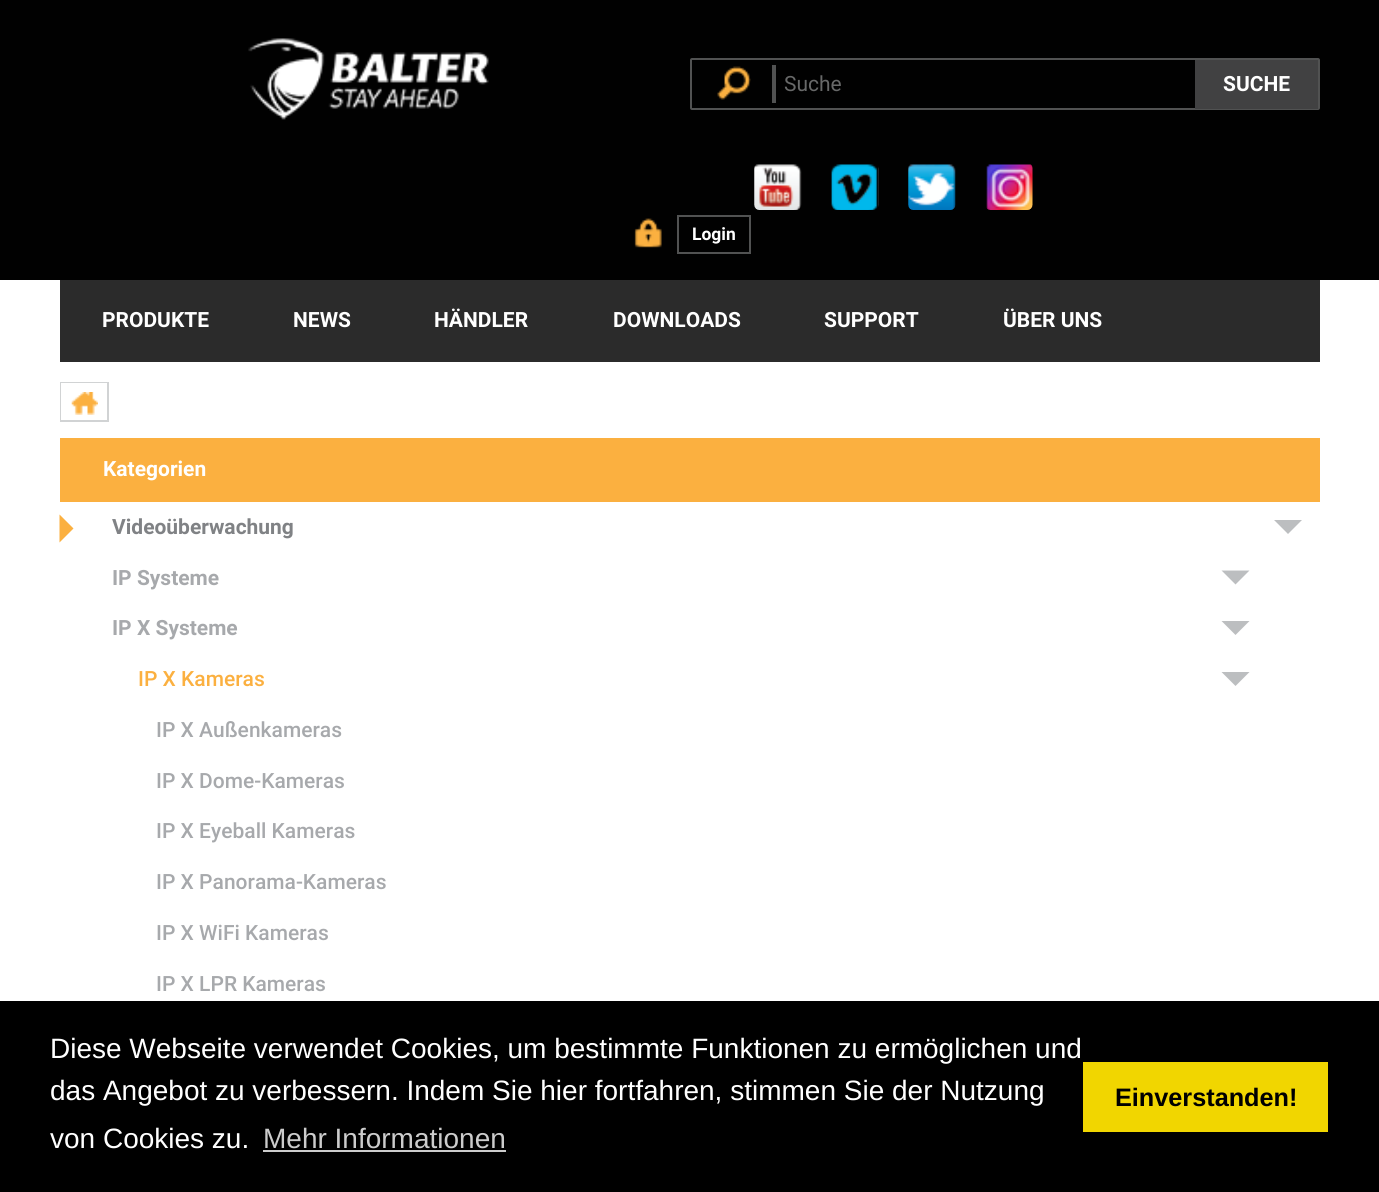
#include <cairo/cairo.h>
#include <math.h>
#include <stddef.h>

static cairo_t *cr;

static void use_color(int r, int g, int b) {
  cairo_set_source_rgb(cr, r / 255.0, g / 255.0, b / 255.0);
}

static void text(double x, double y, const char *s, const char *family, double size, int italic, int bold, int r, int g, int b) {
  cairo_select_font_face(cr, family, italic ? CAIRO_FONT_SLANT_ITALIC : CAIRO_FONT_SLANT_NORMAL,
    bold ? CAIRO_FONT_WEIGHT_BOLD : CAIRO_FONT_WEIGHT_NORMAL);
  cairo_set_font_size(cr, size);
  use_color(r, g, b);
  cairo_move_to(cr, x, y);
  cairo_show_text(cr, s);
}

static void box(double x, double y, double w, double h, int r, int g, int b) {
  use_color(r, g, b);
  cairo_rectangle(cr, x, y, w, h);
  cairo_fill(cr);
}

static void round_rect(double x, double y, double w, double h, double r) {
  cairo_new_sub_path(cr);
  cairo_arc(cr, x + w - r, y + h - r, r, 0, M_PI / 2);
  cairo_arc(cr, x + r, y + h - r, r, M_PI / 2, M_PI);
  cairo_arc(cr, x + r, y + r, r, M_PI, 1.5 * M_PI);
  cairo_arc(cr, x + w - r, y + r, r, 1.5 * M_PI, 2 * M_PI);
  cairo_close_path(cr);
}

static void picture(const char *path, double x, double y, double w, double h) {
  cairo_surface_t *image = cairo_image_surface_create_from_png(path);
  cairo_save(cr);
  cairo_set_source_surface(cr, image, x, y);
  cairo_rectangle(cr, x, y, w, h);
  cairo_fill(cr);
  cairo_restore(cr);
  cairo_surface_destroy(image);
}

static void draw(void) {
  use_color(255, 255, 255);
  cairo_paint(cr);
  box(0, 0, 1379, 280, 1, 1, 1);
  picture("img_01.png", 248, 38, 241, 82);
  round_rect(691, 59, 628, 50, 1);
  use_color(81, 82, 82);
  cairo_stroke(cr);
  picture("img_02.png", 717, 66, 34, 34);
  box(772, 65, 4, 38, 81, 82, 82);
  box(1195, 60, 123, 49, 65, 65, 66);
  picture("img_03.png", 754, 164, 48, 46);
  picture("img_04.png", 831, 164, 48, 46);
  picture("img_05.png", 908, 164, 48, 46);
  picture("img_06.png", 986, 164, 47, 46);
  picture("img_07.png", 634, 218, 28, 30);
  cairo_rectangle(cr, 678, 216, 72, 37);
  use_color(81, 82, 82);
  cairo_stroke(cr);
  box(60, 280, 1260, 82, 43, 43, 43);
  cairo_rectangle(cr, 61, 383, 47, 38);
  use_color(209, 211, 212);
  cairo_stroke(cr);
  box(61, 383, 46, 37, 255, 255, 255);
  picture("img_08.png", 71, 392, 27, 23);
  box(60, 438, 1260, 64, 251, 176, 64);
  cairo_new_path(cr);
  cairo_move_to(cr, 59.5, 542.5);
  cairo_line_to(cr, 59.5, 514.5);
  cairo_line_to(cr, 73.5, 528.5);
  cairo_close_path(cr);
  cairo_fill(cr);
  use_color(188, 190, 192);
  cairo_new_path(cr);
  cairo_move_to(cr, 1274, 520);
  cairo_line_to(cr, 1302, 520);
  cairo_line_to(cr, 1288, 534);
  cairo_close_path(cr);
  cairo_fill(cr);
  cairo_new_path(cr);
  cairo_move_to(cr, 1221.5, 570.5);
  cairo_line_to(cr, 1249.5, 570.5);
  cairo_line_to(cr, 1235.5, 584.5);
  cairo_close_path(cr);
  cairo_fill(cr);
  cairo_new_path(cr);
  cairo_move_to(cr, 1221.5, 621);
  cairo_line_to(cr, 1249.5, 621);
  cairo_line_to(cr, 1235.5, 635);
  cairo_close_path(cr);
  cairo_fill(cr);
  cairo_new_path(cr);
  cairo_move_to(cr, 1221.5, 672);
  cairo_line_to(cr, 1249.5, 672);
  cairo_line_to(cr, 1235.5, 686);
  cairo_close_path(cr);
  cairo_fill(cr);
  box(0, 1001, 1379, 191, 0, 0, 0);
  box(263, 1150, 243, 2, 204, 204, 204);
  box(1083, 1062, 245, 70, 241, 214, 0);
  text(784, 91, "Suche", "Roboto", 21, 0, 0, 104, 105, 105);
  text(1223, 91, "SUCHE", "Roboto", 21, 0, 1, 255, 255, 255);
  text(692, 240, "Login", "Roboto", 17.5, 0, 1, 255, 255, 255);
  text(102, 327, "PRODUKTE", "Roboto", 21, 0, 1, 255, 255, 255);
  text(293, 327, "NEWS", "Roboto", 21, 0, 1, 255, 255, 255);
  text(434, 327, "HÄNDLER", "Roboto", 21, 0, 1, 255, 255, 255);
  text(613, 327, "DOWNLOADS", "Roboto", 21, 0, 1, 255, 255, 255);
  text(824, 327, "SUPPORT", "Roboto", 21, 0, 1, 255, 255, 255);
  text(1003, 327, "ÜBER UNS", "Roboto", 21, 0, 1, 255, 255, 255);
  text(103, 476, "Kategorien", "Roboto", 21, 0, 1, 255, 255, 255);
  text(112, 534, "Videoüberwachung", "Roboto", 21, 0, 1, 128, 130, 133);
  text(112, 585, "IP Systeme", "Roboto", 21, 0, 1, 167, 169, 172);
  text(112, 635, "IP X Systeme", "Roboto", 21, 0, 1, 167, 169, 172);
  text(138, 686, "IP X Kameras", "Roboto Medium", 21, 0, 0, 251, 176, 64);
  text(156, 737, "IP X Außenkameras", "Roboto Medium", 21, 0, 0, 167, 169, 172);
  text(156, 788, "IP X Dome-Kameras", "Roboto Medium", 21, 0, 0, 167, 169, 172);
  text(156, 838, "IP X Eyeball Kameras", "Roboto Medium", 21, 0, 0, 167, 169, 172);
  text(156, 889, "IP X Panorama-Kameras", "Roboto Medium", 21, 0, 0, 167, 169, 172);
  text(156, 940, "IP X WiFi Kameras", "Roboto Medium", 21, 0, 0, 167, 169, 172);
  text(156, 991, "IP X LPR Kameras", "Roboto Medium", 21, 0, 0, 167, 169, 172);
  text(50, 1058, "Diese Webseite verwendet Cookies, um bestimmte Funktionen zu ermöglichen und", "Liberation Sans", 28, 0, 0, 255, 255, 255);
  text(50, 1100, "das Angebot zu verbessern. Indem Sie hier fortfahren, stimmen Sie der Nutzung", "Liberation Sans", 28, 0, 0, 255, 255, 255);
  text(50, 1148, "von Cookies zu.", "Liberation Sans", 28, 0, 0, 255, 255, 255);
  text(263, 1148, "Mehr Informationen", "Liberation Sans", 28, 0, 0, 204, 204, 204);
  text(1115, 1106, "Einverstanden!", "Liberation Sans", 25.25, 0, 1, 0, 0, 0);
}

int main(void) {
  cairo_surface_t *surface = cairo_image_surface_create(CAIRO_FORMAT_RGB24, 1379, 1192);
  cr = cairo_create(surface);
  cairo_font_options_t *options = cairo_font_options_create();
  cairo_font_options_set_hint_metrics(options, CAIRO_HINT_METRICS_OFF);
  cairo_font_options_set_hint_style(options, CAIRO_HINT_STYLE_NONE);
  cairo_set_font_options(cr, options);
  cairo_set_miter_limit(cr, 4);
  draw();
  cairo_surface_write_to_png(surface, "out.png");
  cairo_font_options_destroy(options);
  cairo_destroy(cr);
  cairo_surface_destroy(surface);
  return 0;
}
